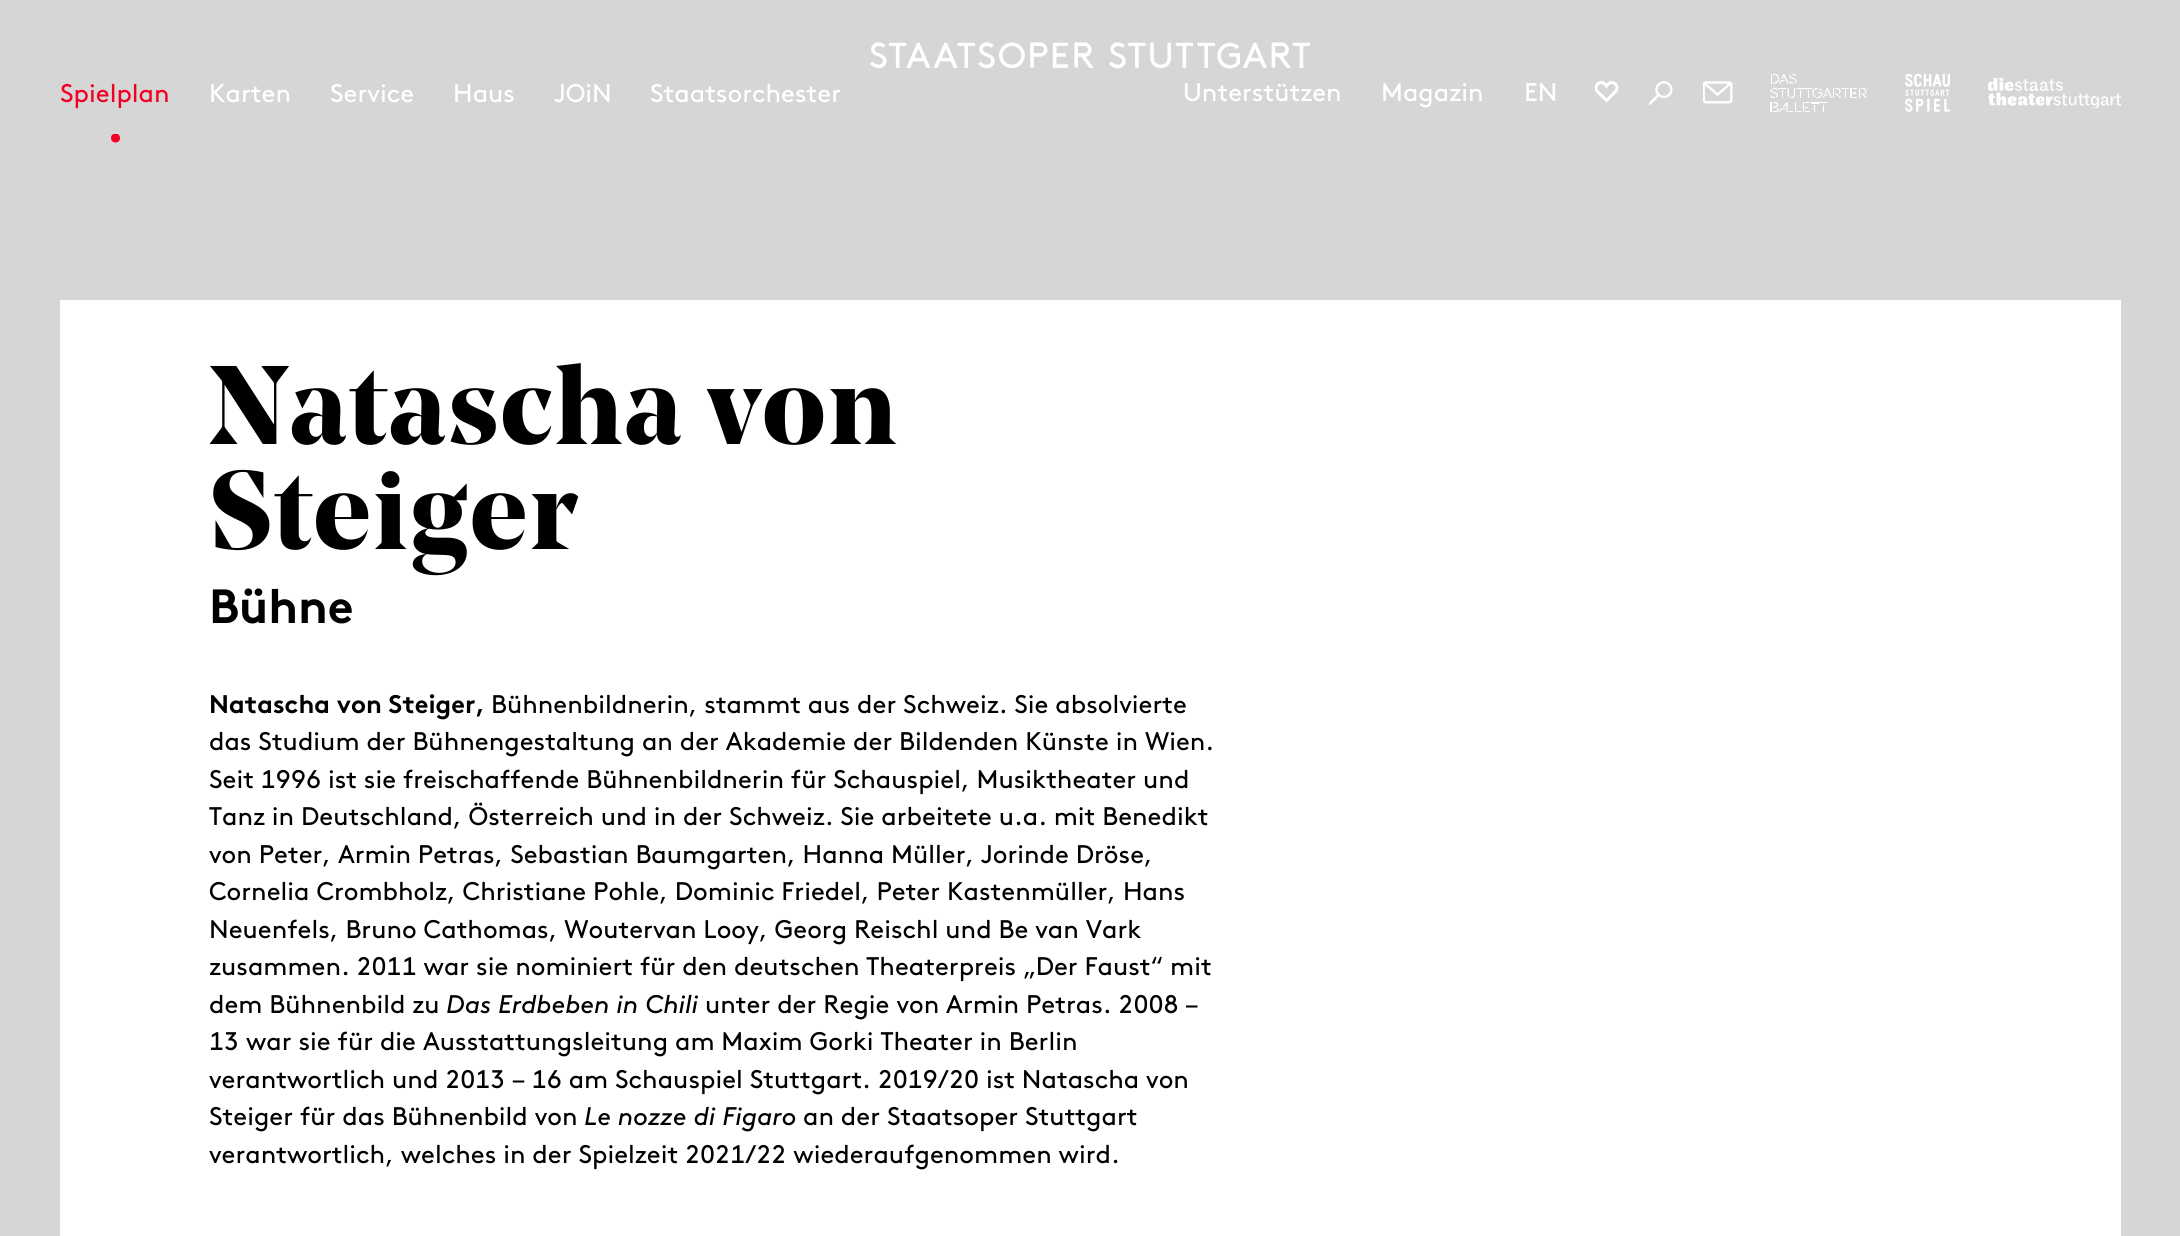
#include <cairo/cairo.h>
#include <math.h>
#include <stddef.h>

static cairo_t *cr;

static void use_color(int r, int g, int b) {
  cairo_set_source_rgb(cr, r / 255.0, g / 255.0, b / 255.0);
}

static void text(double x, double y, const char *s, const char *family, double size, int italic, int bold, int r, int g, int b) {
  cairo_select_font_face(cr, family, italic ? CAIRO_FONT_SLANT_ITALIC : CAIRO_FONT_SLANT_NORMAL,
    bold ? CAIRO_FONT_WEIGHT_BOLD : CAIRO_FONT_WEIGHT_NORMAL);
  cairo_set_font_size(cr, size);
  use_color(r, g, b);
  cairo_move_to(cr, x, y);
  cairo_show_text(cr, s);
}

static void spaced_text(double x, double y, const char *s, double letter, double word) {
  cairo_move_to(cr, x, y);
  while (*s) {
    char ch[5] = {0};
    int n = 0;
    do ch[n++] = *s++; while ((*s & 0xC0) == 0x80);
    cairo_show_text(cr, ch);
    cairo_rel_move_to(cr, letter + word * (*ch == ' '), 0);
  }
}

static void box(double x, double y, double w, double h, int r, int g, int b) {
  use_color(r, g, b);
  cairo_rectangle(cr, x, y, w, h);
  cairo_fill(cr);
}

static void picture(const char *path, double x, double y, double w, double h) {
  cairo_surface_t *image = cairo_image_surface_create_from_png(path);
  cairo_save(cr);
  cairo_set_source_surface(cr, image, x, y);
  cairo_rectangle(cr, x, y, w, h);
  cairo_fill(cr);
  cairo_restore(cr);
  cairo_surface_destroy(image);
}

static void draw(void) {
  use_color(214, 214, 214);
  cairo_paint(cr);
  picture("img_01.png", 870, 42, 440, 27);
  cairo_save(cr);
  cairo_rectangle(cr, 111, 134, 9, 9);
  cairo_clip(cr);
  use_color(240, 0, 35);
  cairo_arc(cr, 115.5, 138, 4.5, 0, 2 * M_PI);
  cairo_fill(cr);
  cairo_restore(cr);
  picture("img_02.png", 1595, 81, 24, 22);
  picture("img_03.png", 1649, 81, 24, 24);
  picture("img_04.png", 1703, 81, 30, 23);
  picture("img_05.png", 1770, 74, 98, 39);
  picture("img_06.png", 1905, 74, 45, 38);
  picture("img_07.png", 1988, 78, 133, 30);
  box(60, 300, 2061, 936, 255, 255, 255);
  text(60, 102, "Spielplan", "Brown", 25.5, 0, 0, 240, 0, 35);
  text(209, 102, "Karten", "Brown", 25.5, 0, 0, 255, 255, 255);
  text(330, 102, "Service", "Brown", 25.5, 0, 0, 255, 255, 255);
  text(453, 102, "Haus", "Brown", 25.5, 0, 0, 255, 255, 255);
  text(554, 102, "JOiN", "Brown", 25.5, 0, 0, 255, 255, 255);
  text(650, 102, "Staatsorchester", "Brown", 25.5, 0, 0, 255, 255, 255);
  text(1183, 101, "Unterstützen", "Brown", 25.5, 0, 0, 255, 255, 255);
  text(1381, 101, "Magazin", "Brown", 25.5, 0, 0, 255, 255, 255);
  text(1524, 101, "EN", "Brown", 25.5, 0, 0, 255, 255, 255);
  cairo_select_font_face(cr, "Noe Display", CAIRO_FONT_SLANT_NORMAL, CAIRO_FONT_WEIGHT_BOLD);
  cairo_set_font_size(cr, 111);
  use_color(0, 0, 0);
  spaced_text(209, 444, "Natascha von", 2.25, 0);
  spaced_text(209, 549, "Steiger", 2.25, 0);
  text(209, 623, "Bühne", "Brown", 48, 0, 1, 0, 0, 0);
  text(209, 713, "Natascha von Steiger,", "Brown", 25.5, 0, 1, 0, 0, 0);
  text(491, 713, "Bühnenbildnerin, stammt aus der Schweiz. Sie absolvierte", "Brown", 25.5, 0, 0, 0, 0, 0);
  text(209, 750, "das Studium der Bühnengestaltung an der Akademie der Bildenden Künste in Wien.", "Brown", 25.5, 0, 0, 0, 0, 0);
  text(209, 788, "Seit 1996 ist sie freischaffende Bühnenbildnerin für Schauspiel, Musiktheater und", "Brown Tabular", 25.5, 0, 0, 0, 0, 0);
  text(209, 825, "Tanz in Deutschland, Österreich und in der Schweiz. Sie arbeitete u.a. mit Benedikt", "Brown", 25.5, 0, 0, 0, 0, 0);
  text(209, 863, "von Peter, Armin Petras, Sebastian Baumgarten, Hanna Müller, Jorinde Dröse,", "Brown", 25.5, 0, 0, 0, 0, 0);
  text(209, 900, "Cornelia Crombholz, Christiane Pohle, Dominic Friedel, Peter Kastenmüller, Hans", "Brown", 25.5, 0, 0, 0, 0, 0);
  text(209, 938, "Neuenfels, Bruno Cathomas, Woutervan Looy, Georg Reischl und Be van Vark", "Brown", 25.5, 0, 0, 0, 0, 0);
  text(209, 975, "zusammen. 2011 war sie nominiert für den deutschen Theaterpreis „Der Faust“ mit", "Brown Tabular", 25.5, 0, 0, 0, 0, 0);
  text(209, 1013, "dem Bühnenbild zu", "Brown", 25.5, 0, 0, 0, 0, 0);
  text(446, 1013, "Das Erdbeben in Chili", "Brown", 25.5, 1, 0, 0, 0, 0);
  text(705, 1013, "unter der Regie von Armin Petras. 2008 –", "Brown Tabular", 25.5, 0, 0, 0, 0, 0);
  text(209, 1050, "13 war sie für die Ausstattungsleitung am Maxim Gorki Theater in Berlin", "Brown Tabular", 25.5, 0, 0, 0, 0, 0);
  text(209, 1088, "verantwortlich und 2013 – 16 am Schauspiel Stuttgart. 2019/20 ist Natascha von", "Brown Tabular", 25.5, 0, 0, 0, 0, 0);
  text(209, 1125, "Steiger für das Bühnenbild von", "Brown", 25.5, 0, 0, 0, 0, 0);
  text(584, 1125, "Le nozze di Figaro", "Brown", 25.5, 1, 0, 0, 0, 0);
  text(803, 1125, "an der Staatsoper Stuttgart", "Brown", 25.5, 0, 0, 0, 0, 0);
  text(209, 1163, "verantwortlich, welches in der Spielzeit 2021/22 wiederaufgenommen wird.", "Brown Tabular", 25.5, 0, 0, 0, 0, 0);
}

int main(void) {
  cairo_surface_t *surface = cairo_image_surface_create(CAIRO_FORMAT_RGB24, 2180, 1236);
  cr = cairo_create(surface);
  cairo_font_options_t *options = cairo_font_options_create();
  cairo_font_options_set_hint_metrics(options, CAIRO_HINT_METRICS_OFF);
  cairo_font_options_set_hint_style(options, CAIRO_HINT_STYLE_NONE);
  cairo_set_font_options(cr, options);
  cairo_set_miter_limit(cr, 4);
  draw();
  cairo_surface_write_to_png(surface, "out.png");
  cairo_font_options_destroy(options);
  cairo_destroy(cr);
  cairo_surface_destroy(surface);
  return 0;
}
